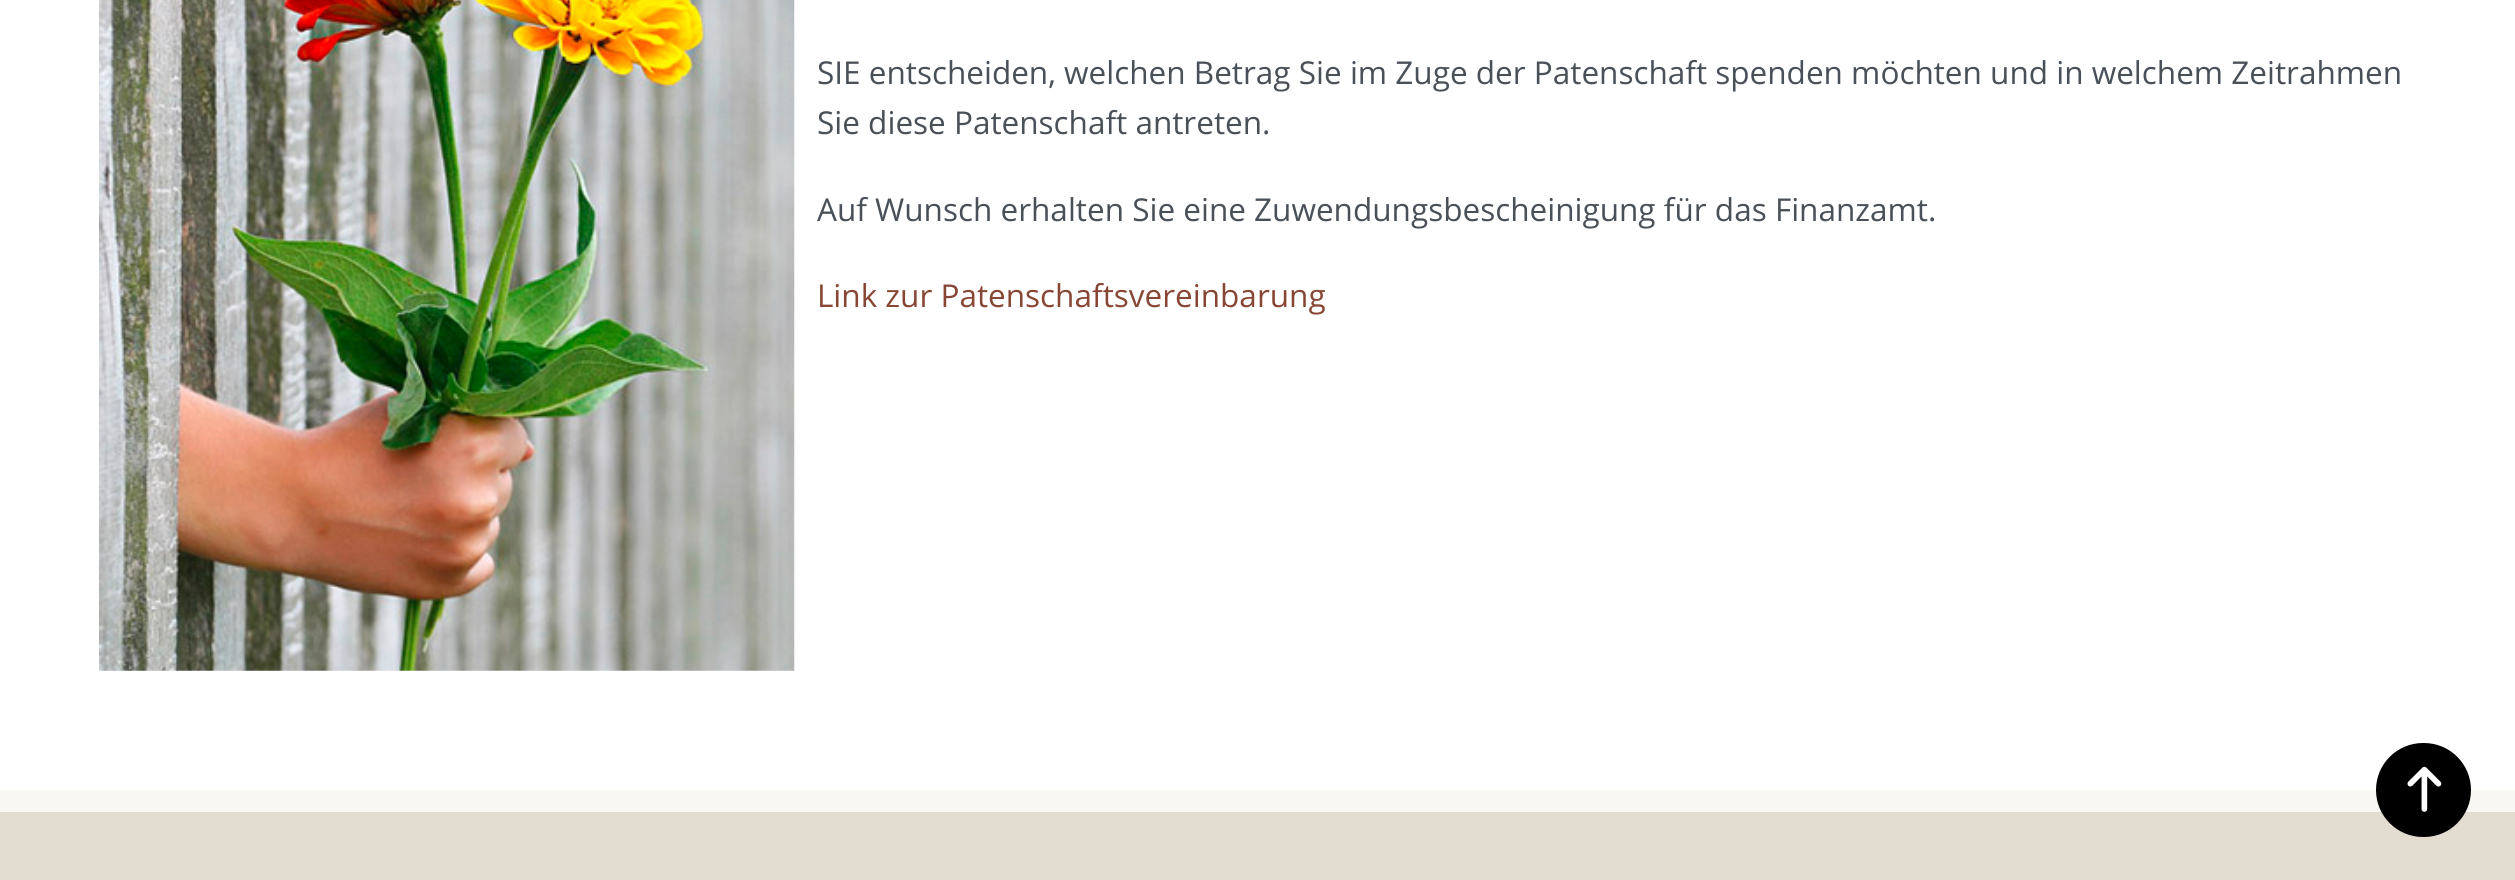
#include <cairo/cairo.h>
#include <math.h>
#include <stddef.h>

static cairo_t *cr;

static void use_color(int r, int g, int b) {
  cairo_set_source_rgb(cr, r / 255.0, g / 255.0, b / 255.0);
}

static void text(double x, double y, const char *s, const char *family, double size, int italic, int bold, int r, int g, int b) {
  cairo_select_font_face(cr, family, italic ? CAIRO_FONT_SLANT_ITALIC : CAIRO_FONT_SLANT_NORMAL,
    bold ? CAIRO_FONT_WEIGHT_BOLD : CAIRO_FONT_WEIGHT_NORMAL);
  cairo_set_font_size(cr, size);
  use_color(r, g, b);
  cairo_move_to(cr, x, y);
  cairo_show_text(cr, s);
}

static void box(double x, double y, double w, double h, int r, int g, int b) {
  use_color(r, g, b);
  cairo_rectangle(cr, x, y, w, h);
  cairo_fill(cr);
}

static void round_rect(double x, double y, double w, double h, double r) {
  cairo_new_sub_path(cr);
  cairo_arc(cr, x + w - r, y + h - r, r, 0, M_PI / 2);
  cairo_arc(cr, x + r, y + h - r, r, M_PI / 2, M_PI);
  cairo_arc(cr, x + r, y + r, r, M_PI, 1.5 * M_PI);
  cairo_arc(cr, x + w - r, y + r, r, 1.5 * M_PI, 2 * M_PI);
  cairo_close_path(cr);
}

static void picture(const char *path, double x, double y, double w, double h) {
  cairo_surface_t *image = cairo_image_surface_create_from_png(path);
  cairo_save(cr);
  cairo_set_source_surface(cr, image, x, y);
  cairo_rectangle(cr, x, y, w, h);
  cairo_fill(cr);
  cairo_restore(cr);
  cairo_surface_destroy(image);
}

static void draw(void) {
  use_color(249, 247, 243);
  cairo_paint(cr);
  box(0, 0, 2515, 790, 255, 255, 255);
  picture("img_01.png", 99, 0, 696, 671);
  box(0, 812, 2515, 68, 227, 221, 209);
  use_color(0, 0, 0);
  round_rect(2376, 743, 95, 94, 47);
  cairo_fill(cr);
  picture("img_02.png", 2407, 766, 35, 46);
  text(817, 84, "SIE entscheiden, welchen Betrag Sie im Zuge der Patenschaft spenden möchten und in welchem Zeitrahmen", "Open Sans", 31.5, 0, 0, 73, 80, 87);
  text(817, 134, "Sie diese Patenschaft antreten.", "Open Sans", 31.5, 0, 0, 73, 80, 87);
  text(817, 221, "Auf Wunsch erhalten Sie eine Zuwendungsbescheinigung für das Finanzamt.", "Open Sans", 31.5, 0, 0, 73, 80, 87);
  text(817, 307, "Link zur Patenschaftsvereinbarung", "Open Sans", 31.5, 0, 0, 136, 70, 53);
}

int main(void) {
  cairo_surface_t *surface = cairo_image_surface_create(CAIRO_FORMAT_RGB24, 2515, 880);
  cr = cairo_create(surface);
  cairo_font_options_t *options = cairo_font_options_create();
  cairo_font_options_set_hint_metrics(options, CAIRO_HINT_METRICS_OFF);
  cairo_font_options_set_hint_style(options, CAIRO_HINT_STYLE_NONE);
  cairo_set_font_options(cr, options);
  cairo_set_miter_limit(cr, 4);
  draw();
  cairo_surface_write_to_png(surface, "out.png");
  cairo_font_options_destroy(options);
  cairo_destroy(cr);
  cairo_surface_destroy(surface);
  return 0;
}
